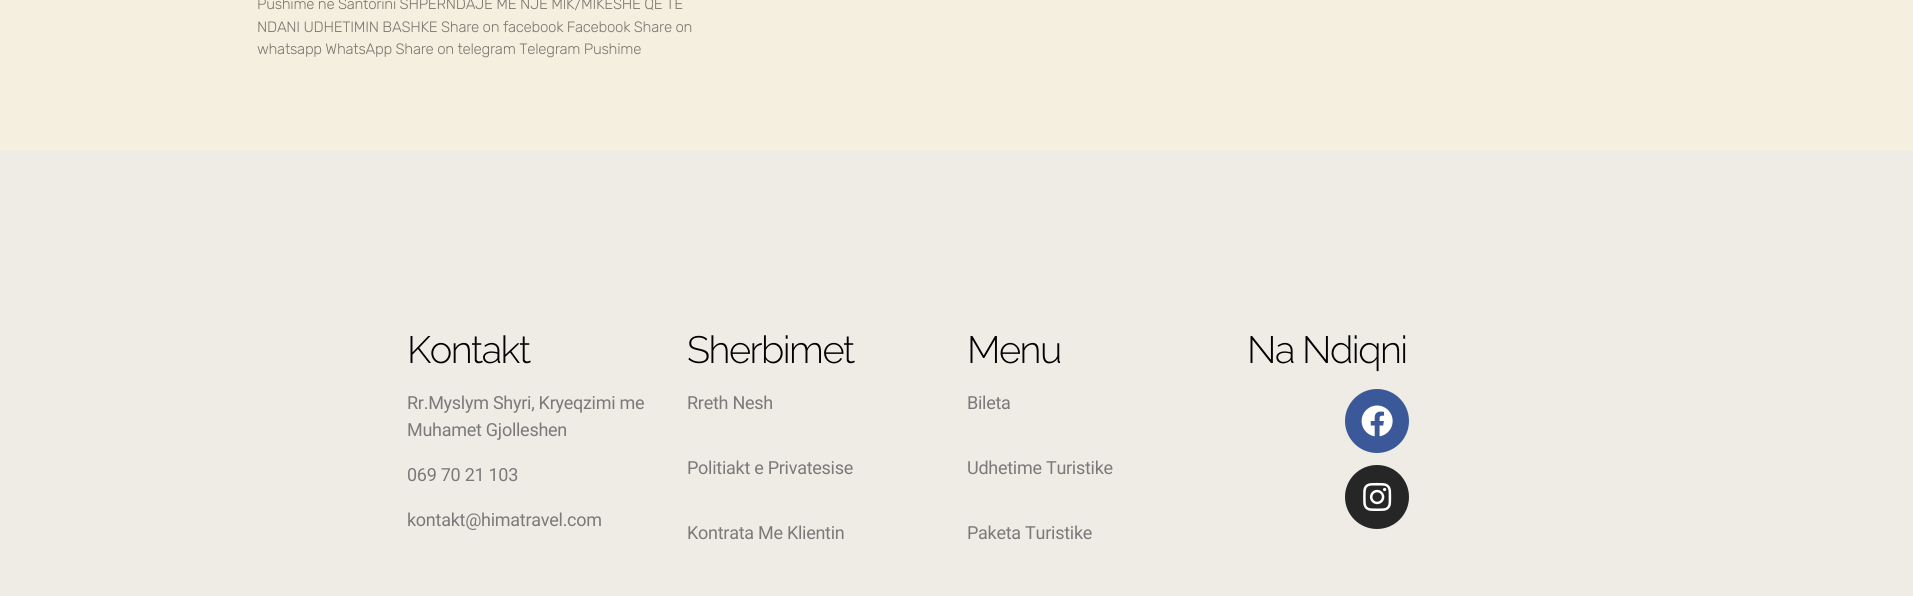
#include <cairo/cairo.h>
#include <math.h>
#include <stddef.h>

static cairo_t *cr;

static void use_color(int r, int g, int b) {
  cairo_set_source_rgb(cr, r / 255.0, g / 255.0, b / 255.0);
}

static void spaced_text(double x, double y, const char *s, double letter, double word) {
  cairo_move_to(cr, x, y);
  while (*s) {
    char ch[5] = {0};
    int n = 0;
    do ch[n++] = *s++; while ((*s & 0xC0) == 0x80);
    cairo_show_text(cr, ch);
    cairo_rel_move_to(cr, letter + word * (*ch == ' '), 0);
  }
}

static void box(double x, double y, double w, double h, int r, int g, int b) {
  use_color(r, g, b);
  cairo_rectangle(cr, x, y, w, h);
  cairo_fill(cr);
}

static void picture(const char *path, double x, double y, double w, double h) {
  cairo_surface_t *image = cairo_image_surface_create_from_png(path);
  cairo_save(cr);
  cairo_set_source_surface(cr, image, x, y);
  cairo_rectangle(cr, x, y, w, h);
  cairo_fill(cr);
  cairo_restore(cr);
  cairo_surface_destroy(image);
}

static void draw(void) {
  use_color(245, 239, 224);
  cairo_paint(cr);
  box(0, 151, 1913, 445, 238, 236, 228);
  use_color(59, 89, 152);
  cairo_arc(cr, 1377, 421, 32, 0, 2 * M_PI);
  cairo_fill(cr);
  picture("img_01.png", 1361, 405, 32, 32);
  use_color(38, 38, 38);
  cairo_arc(cr, 1377, 497, 32, 0, 2 * M_PI);
  cairo_fill(cr);
  picture("img_02.png", 1363, 482, 29, 29);
  cairo_select_font_face(cr, "Rubik Light", CAIRO_FONT_SLANT_NORMAL, CAIRO_FONT_WEIGHT_NORMAL);
  cairo_set_font_size(cr, 15);
  use_color(123, 120, 112);
  spaced_text(257, 9, "Pushime ne Santorini SHPERNDAJE ME NJE MIK/MIKESHE QE TE", -0.27, 0);
  spaced_text(257, 32, "NDANI UDHETIMIN BASHKE Share on facebook Facebook Share on", -0.27, 0);
  spaced_text(257, 54, "whatsapp WhatsApp Share on telegram Telegram Pushime", -0.27, 0);
  cairo_select_font_face(cr, "Raleway Light", CAIRO_FONT_SLANT_NORMAL, CAIRO_FONT_WEIGHT_NORMAL);
  cairo_set_font_size(cr, 38);
  use_color(0, 0, 0);
  spaced_text(407, 363, "Kontakt", -1.5, 0);
  cairo_select_font_face(cr, "Roboto", CAIRO_FONT_SLANT_NORMAL, CAIRO_FONT_WEIGHT_NORMAL);
  cairo_set_font_size(cr, 18);
  use_color(122, 122, 122);
  spaced_text(407, 409, "Rr.Myslym Shyri, Kryeqzimi me", -0.27, 0);
  spaced_text(407, 436, "Muhamet Gjolleshen", -0.27, 0);
  spaced_text(407, 481, "069 70 21 103", -0.27, 0);
  spaced_text(407, 526, "kontakt@himatravel.com", -0.27, 0);
  cairo_select_font_face(cr, "Raleway Light", CAIRO_FONT_SLANT_NORMAL, CAIRO_FONT_WEIGHT_NORMAL);
  cairo_set_font_size(cr, 38);
  use_color(0, 0, 0);
  spaced_text(687, 363, "Sherbimet", -1.5, 0);
  cairo_select_font_face(cr, "Roboto", CAIRO_FONT_SLANT_NORMAL, CAIRO_FONT_WEIGHT_NORMAL);
  cairo_set_font_size(cr, 18);
  use_color(122, 122, 122);
  spaced_text(687, 409, "Rreth Nesh", -0.27, 0);
  spaced_text(687, 474, "Politiakt e Privatesise", -0.27, 0);
  spaced_text(687, 539, "Kontrata Me Klientin", -0.27, 0);
  cairo_select_font_face(cr, "Raleway Light", CAIRO_FONT_SLANT_NORMAL, CAIRO_FONT_WEIGHT_NORMAL);
  cairo_set_font_size(cr, 38);
  use_color(0, 0, 0);
  spaced_text(967, 363, "Menu", -1.5, 0);
  cairo_select_font_face(cr, "Roboto", CAIRO_FONT_SLANT_NORMAL, CAIRO_FONT_WEIGHT_NORMAL);
  cairo_set_font_size(cr, 18);
  use_color(122, 122, 122);
  spaced_text(967, 409, "Bileta", -0.27, 0);
  spaced_text(967, 474, "Udhetime Turistike", -0.27, 0);
  spaced_text(967, 539, "Paketa Turistike", -0.27, 0);
  cairo_select_font_face(cr, "Raleway Light", CAIRO_FONT_SLANT_NORMAL, CAIRO_FONT_WEIGHT_NORMAL);
  cairo_set_font_size(cr, 38);
  use_color(0, 0, 0);
  spaced_text(1247, 363, "Na Ndiqni", -1.5, 0);
}

int main(void) {
  cairo_surface_t *surface = cairo_image_surface_create(CAIRO_FORMAT_RGB24, 1913, 596);
  cr = cairo_create(surface);
  cairo_font_options_t *options = cairo_font_options_create();
  cairo_font_options_set_hint_metrics(options, CAIRO_HINT_METRICS_OFF);
  cairo_font_options_set_hint_style(options, CAIRO_HINT_STYLE_NONE);
  cairo_set_font_options(cr, options);
  cairo_set_miter_limit(cr, 4);
  draw();
  cairo_surface_write_to_png(surface, "out.png");
  cairo_font_options_destroy(options);
  cairo_destroy(cr);
  cairo_surface_destroy(surface);
  return 0;
}
